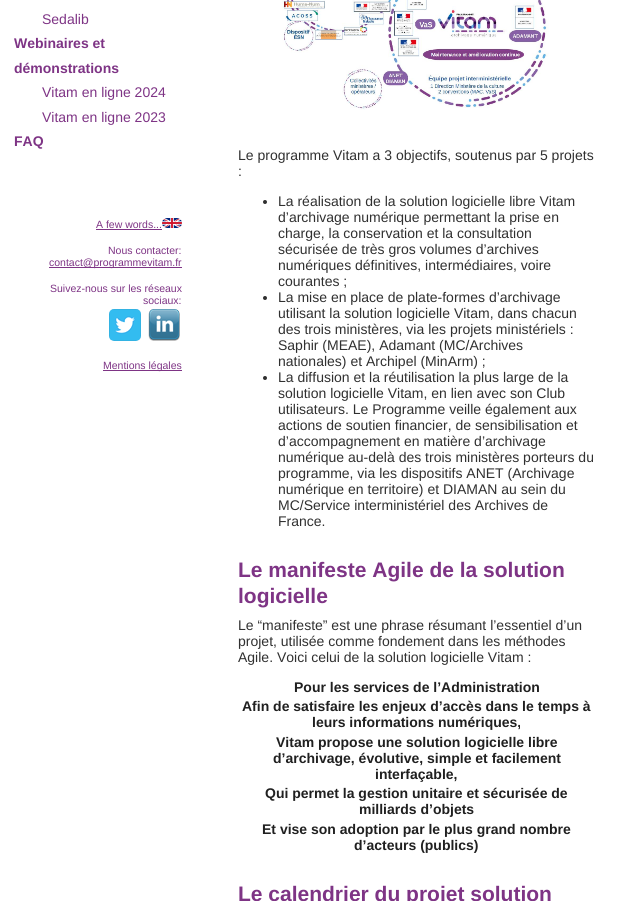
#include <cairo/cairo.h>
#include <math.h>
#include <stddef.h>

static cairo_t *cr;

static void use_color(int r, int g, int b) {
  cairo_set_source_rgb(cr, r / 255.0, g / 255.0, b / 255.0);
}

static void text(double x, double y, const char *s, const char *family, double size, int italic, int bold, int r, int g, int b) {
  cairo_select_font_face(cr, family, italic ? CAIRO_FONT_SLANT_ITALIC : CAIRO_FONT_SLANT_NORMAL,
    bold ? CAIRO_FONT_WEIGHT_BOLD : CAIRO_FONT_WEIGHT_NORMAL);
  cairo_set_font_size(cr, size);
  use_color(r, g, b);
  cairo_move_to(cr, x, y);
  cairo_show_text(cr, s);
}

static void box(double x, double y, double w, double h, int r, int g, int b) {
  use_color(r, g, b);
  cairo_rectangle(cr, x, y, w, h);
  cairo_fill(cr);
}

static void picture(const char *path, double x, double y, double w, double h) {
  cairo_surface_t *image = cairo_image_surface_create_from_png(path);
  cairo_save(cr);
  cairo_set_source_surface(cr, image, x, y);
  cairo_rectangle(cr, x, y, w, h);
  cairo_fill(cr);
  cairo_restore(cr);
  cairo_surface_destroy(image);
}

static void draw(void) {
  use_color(255, 255, 255);
  cairo_paint(cr);
  box(96, 229, 66, 1, 126, 52, 133);
  picture("img_01.png", 162, 218, 20, 10);
  box(49, 267, 133, 1, 126, 52, 133);
  picture("img_02.png", 109, 309, 32, 32);
  picture("img_03.png", 148, 309, 32, 32);
  box(103, 370, 79, 1, 126, 52, 133);
  picture("img_04.png", 282, 0, 267, 110);
  use_color(48, 48, 48);
  cairo_arc(cr, 265, 202, 2, 0, 2 * M_PI);
  cairo_fill(cr);
  cairo_arc(cr, 265, 298, 2, 0, 2 * M_PI);
  cairo_fill(cr);
  cairo_arc(cr, 265, 378, 2, 0, 2 * M_PI);
  cairo_fill(cr);
  text(42, 24, "Sedalib", "Liberation Sans", 14, 0, 0, 126, 52, 133);
  text(14, 48, "Webinaires et", "Liberation Sans", 14, 0, 1, 126, 52, 133);
  text(14, 73, "démonstrations", "Liberation Sans", 14, 0, 1, 126, 52, 133);
  text(42, 97, "Vitam en ligne 2024", "Liberation Sans", 14, 0, 0, 126, 52, 133);
  text(42, 122, "Vitam en ligne 2023", "Liberation Sans", 14, 0, 0, 126, 52, 133);
  text(14, 146, "FAQ", "Liberation Sans", 14, 0, 1, 126, 52, 133);
  text(96, 228, "A few words...", "Liberation Sans", 10.5, 0, 0, 126, 52, 133);
  text(108, 254, "Nous contacter:", "Liberation Sans", 10.5, 0, 0, 126, 52, 133);
  text(49, 266, "contact@programmevitam.fr", "Liberation Sans", 10.5, 0, 0, 126, 52, 133);
  text(50, 292, "Suivez-nous sur les réseaux", "Liberation Sans", 10.5, 0, 0, 126, 52, 133);
  text(143, 304, "sociaux:", "Liberation Sans", 10.5, 0, 0, 126, 52, 133);
  text(103, 369, "Mentions légales", "Liberation Sans", 10.5, 0, 0, 126, 52, 133);
  text(238, 160, "Le programme Vitam a 3 objectifs, soutenus par 5 projets", "Liberation Sans", 14, 0, 0, 48, 48, 48);
  text(238, 176, ":", "Liberation Sans", 14, 0, 0, 48, 48, 48);
  text(278, 206, "La réalisation de la solution logicielle libre Vitam", "Liberation Sans", 14, 0, 0, 48, 48, 48);
  text(278, 222, "d’archivage numérique permettant la prise en", "Liberation Sans", 14, 0, 0, 48, 48, 48);
  text(278, 238, "charge, la conservation et la consultation", "Liberation Sans", 14, 0, 0, 48, 48, 48);
  text(278, 254, "sécurisée de très gros volumes d’archives", "Liberation Sans", 14, 0, 0, 48, 48, 48);
  text(278, 270, "numériques définitives, intermédiaires, voire", "Liberation Sans", 14, 0, 0, 48, 48, 48);
  text(278, 286, "courantes ;", "Liberation Sans", 14, 0, 0, 48, 48, 48);
  text(278, 302, "La mise en place de plate-formes d’archivage", "Liberation Sans", 14, 0, 0, 48, 48, 48);
  text(278, 318, "utilisant la solution logicielle Vitam, dans chacun", "Liberation Sans", 14, 0, 0, 48, 48, 48);
  text(278, 334, "des trois ministères, via les projets ministériels :", "Liberation Sans", 14, 0, 0, 48, 48, 48);
  text(278, 350, "Saphir (MEAE), Adamant (MC/Archives", "Liberation Sans", 14, 0, 0, 48, 48, 48);
  text(278, 366, "nationales) et Archipel (MinArm) ;", "Liberation Sans", 14, 0, 0, 48, 48, 48);
  text(278, 382, "La diffusion et la réutilisation la plus large de la", "Liberation Sans", 14, 0, 0, 48, 48, 48);
  text(278, 398, "solution logicielle Vitam, en lien avec son Club", "Liberation Sans", 14, 0, 0, 48, 48, 48);
  text(278, 414, "utilisateurs. Le Programme veille également aux", "Liberation Sans", 14, 0, 0, 48, 48, 48);
  text(278, 430, "actions de soutien financier, de sensibilisation et", "Liberation Sans", 14, 0, 0, 48, 48, 48);
  text(278, 446, "d’accompagnement en matière d’archivage", "Liberation Sans", 14, 0, 0, 48, 48, 48);
  text(278, 462, "numérique au-delà des trois ministères porteurs du", "Liberation Sans", 14, 0, 0, 48, 48, 48);
  text(278, 478, "programme, via les dispositifs ANET (Archivage", "Liberation Sans", 14, 0, 0, 48, 48, 48);
  text(278, 494, "numérique en territoire) et DIAMAN au sein du", "Liberation Sans", 14, 0, 0, 48, 48, 48);
  text(278, 510, "MC/Service interministériel des Archives de", "Liberation Sans", 14, 0, 0, 48, 48, 48);
  text(278, 526, "France.", "Liberation Sans", 14, 0, 0, 48, 48, 48);
  text(238, 577, "Le manifeste Agile de la solution", "Liberation Sans", 21, 0, 1, 126, 52, 133);
  text(238, 603, "logicielle", "Liberation Sans", 21, 0, 1, 126, 52, 133);
  text(238, 630, "Le “manifeste” est une phrase résumant l’essentiel d’un", "Liberation Sans", 14, 0, 0, 48, 48, 48);
  text(238, 646, "projet, utilisée comme fondement dans les méthodes", "Liberation Sans", 14, 0, 0, 48, 48, 48);
  text(238, 662, "Agile. Voici celui de la solution logicielle Vitam :", "Liberation Sans", 14, 0, 0, 48, 48, 48);
  text(294, 692, "Pour les services de l’Administration", "Liberation Sans", 14, 0, 1, 32, 32, 32);
  text(242, 711, "Afin de satisfaire les enjeux d’accès dans le temps à", "Liberation Sans", 14, 0, 1, 32, 32, 32);
  text(312, 727, "leurs informations numériques,", "Liberation Sans", 14, 0, 1, 32, 32, 32);
  text(276, 747, "Vitam propose une solution logicielle libre", "Liberation Sans", 14, 0, 1, 32, 32, 32);
  text(273, 763, "d’archivage, évolutive, simple et facilement", "Liberation Sans", 14, 0, 1, 32, 32, 32);
  text(375, 779, "interfaçable,", "Liberation Sans", 14, 0, 1, 32, 32, 32);
  text(265, 798, "Qui permet la gestion unitaire et sécurisée de", "Liberation Sans", 14, 0, 1, 32, 32, 32);
  text(359, 814, "milliards d’objets", "Liberation Sans", 14, 0, 1, 32, 32, 32);
  text(262, 834, "Et vise son adoption par le plus grand nombre", "Liberation Sans", 14, 0, 1, 32, 32, 32);
  text(354, 850, "d’acteurs (publics)", "Liberation Sans", 14, 0, 1, 32, 32, 32);
  text(238, 901, "Le calendrier du projet solution", "Liberation Sans", 21, 0, 1, 126, 52, 133);
}

int main(void) {
  cairo_surface_t *surface = cairo_image_surface_create(CAIRO_FORMAT_RGB24, 623, 901);
  cr = cairo_create(surface);
  cairo_font_options_t *options = cairo_font_options_create();
  cairo_font_options_set_hint_metrics(options, CAIRO_HINT_METRICS_OFF);
  cairo_font_options_set_hint_style(options, CAIRO_HINT_STYLE_NONE);
  cairo_set_font_options(cr, options);
  cairo_set_miter_limit(cr, 4);
  draw();
  cairo_surface_write_to_png(surface, "out.png");
  cairo_font_options_destroy(options);
  cairo_destroy(cr);
  cairo_surface_destroy(surface);
  return 0;
}
